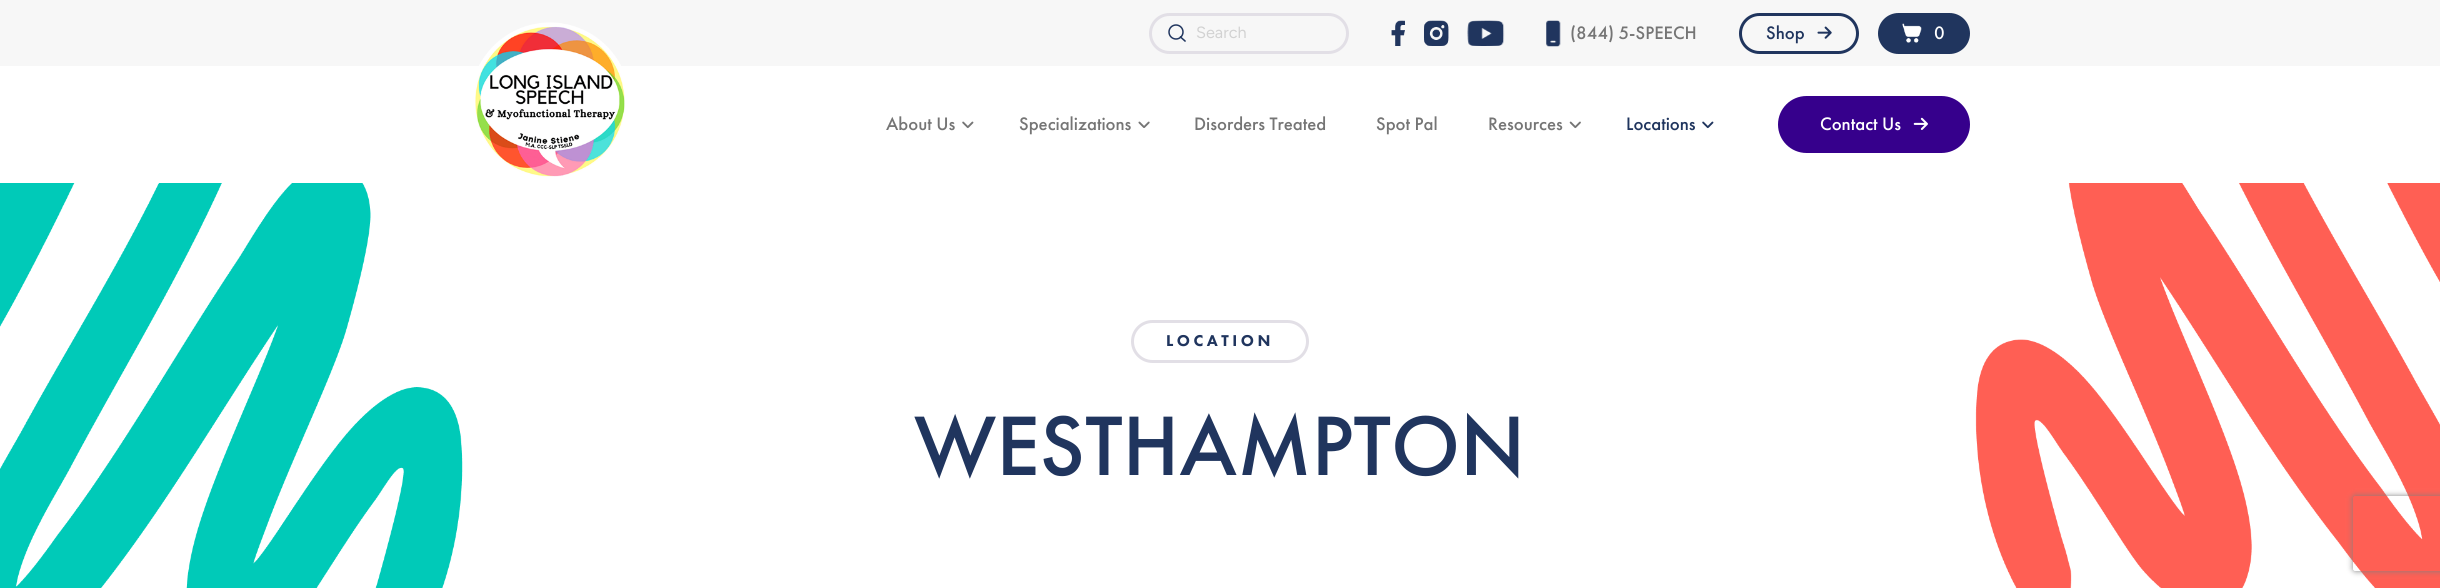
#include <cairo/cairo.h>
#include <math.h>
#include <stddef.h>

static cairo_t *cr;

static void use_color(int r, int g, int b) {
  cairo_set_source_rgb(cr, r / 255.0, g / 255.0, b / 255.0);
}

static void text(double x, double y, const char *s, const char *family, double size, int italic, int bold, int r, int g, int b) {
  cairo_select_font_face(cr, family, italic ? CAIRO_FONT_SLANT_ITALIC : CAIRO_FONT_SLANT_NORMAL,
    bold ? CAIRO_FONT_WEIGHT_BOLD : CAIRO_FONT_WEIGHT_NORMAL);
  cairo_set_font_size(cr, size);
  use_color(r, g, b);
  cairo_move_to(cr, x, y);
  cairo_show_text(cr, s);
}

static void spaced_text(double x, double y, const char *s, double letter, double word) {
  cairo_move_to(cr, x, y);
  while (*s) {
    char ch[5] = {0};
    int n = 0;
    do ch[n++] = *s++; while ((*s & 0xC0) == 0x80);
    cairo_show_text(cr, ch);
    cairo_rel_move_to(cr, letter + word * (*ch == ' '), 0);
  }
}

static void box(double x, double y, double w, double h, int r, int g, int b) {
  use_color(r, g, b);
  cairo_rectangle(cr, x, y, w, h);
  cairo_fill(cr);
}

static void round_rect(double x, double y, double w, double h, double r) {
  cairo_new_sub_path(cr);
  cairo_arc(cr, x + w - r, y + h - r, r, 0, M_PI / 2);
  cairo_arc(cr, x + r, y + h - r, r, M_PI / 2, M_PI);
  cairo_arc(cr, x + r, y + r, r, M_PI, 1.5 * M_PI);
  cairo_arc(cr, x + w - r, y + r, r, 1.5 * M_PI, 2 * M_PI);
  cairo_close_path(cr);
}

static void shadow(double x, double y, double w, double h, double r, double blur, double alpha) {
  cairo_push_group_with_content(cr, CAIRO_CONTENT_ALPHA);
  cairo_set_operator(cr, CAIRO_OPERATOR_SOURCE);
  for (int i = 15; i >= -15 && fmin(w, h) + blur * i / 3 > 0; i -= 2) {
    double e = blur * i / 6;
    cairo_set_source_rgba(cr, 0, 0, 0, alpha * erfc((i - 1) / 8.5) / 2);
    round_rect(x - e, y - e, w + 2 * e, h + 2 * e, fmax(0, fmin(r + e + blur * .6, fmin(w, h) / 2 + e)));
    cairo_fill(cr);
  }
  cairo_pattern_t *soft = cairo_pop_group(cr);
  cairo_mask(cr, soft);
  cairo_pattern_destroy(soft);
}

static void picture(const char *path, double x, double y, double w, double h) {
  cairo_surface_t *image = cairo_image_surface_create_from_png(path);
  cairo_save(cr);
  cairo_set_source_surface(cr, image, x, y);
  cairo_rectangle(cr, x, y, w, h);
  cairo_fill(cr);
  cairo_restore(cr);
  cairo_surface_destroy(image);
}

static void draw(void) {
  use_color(255, 255, 255);
  cairo_paint(cr);
  box(0, 0, 2440, 66, 247, 247, 247);
  round_rect(1150.5, 14.5, 197, 38, 19);
  use_color(226, 223, 230);
  cairo_set_line_width(cr, 3);
  cairo_stroke(cr);
  cairo_arc(cr, 1176, 32, 7, 0, 2 * M_PI);
  use_color(32, 53, 94);
  cairo_set_line_width(cr, 1.5);
  cairo_stroke(cr);
  cairo_new_path(cr);
  cairo_move_to(cr, 1185, 41);
  cairo_line_to(cr, 1180.5, 37);
  cairo_set_line_cap(cr, CAIRO_LINE_CAP_SQUARE);
  cairo_stroke(cr);
  picture("img_01.png", 1391, 20, 14, 26);
  picture("img_02.png", 1424, 20, 25, 26);
  picture("img_03.png", 1467, 20, 38, 26);
  picture("img_04.png", 1546, 20, 15, 27);
  round_rect(1740.5, 14.5, 117, 38, 19);
  cairo_set_line_width(cr, 3);
  cairo_set_line_cap(cr, CAIRO_LINE_CAP_BUTT);
  cairo_stroke(cr);
  picture("img_05.png", 1817, 26, 15, 13);
  round_rect(1879.5, 14.5, 89, 38, 19);
  cairo_fill_preserve(cr);
  cairo_stroke(cr);
  picture("img_06.png", 1902, 23, 20, 20);
  picture("img_07.png", 475, 22, 150, 155);
  picture("img_08.png", 962, 121, 12, 8);
  picture("img_09.png", 1138, 121, 12, 7);
  picture("img_10.png", 1569, 121, 12, 8);
  picture("img_11.png", 1702, 121, 12, 8);
  use_color(54, 0, 140);
  round_rect(1778, 96, 192, 57, 28.5);
  cairo_fill(cr);
  picture("img_12.png", 1913, 117, 15, 13);
  picture("img_13.png", 0, 183, 463, 405);
  round_rect(1132.5, 321.5, 175, 40, 20);
  use_color(226, 223, 230);
  cairo_stroke(cr);
  picture("img_14.png", 1975, 183, 465, 405);
  cairo_save(cr);
  cairo_set_fill_rule(cr, CAIRO_FILL_RULE_EVEN_ODD);
  cairo_new_path(cr);
  cairo_move_to(cr, 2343, 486);
  cairo_line_to(cr, 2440, 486);
  cairo_line_to(cr, 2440, 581);
  cairo_line_to(cr, 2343, 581);
  cairo_close_path(cr);
  cairo_move_to(cr, 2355.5, 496);
  cairo_line_to(cr, 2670.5, 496);
  cairo_curve_to(cr, 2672, 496, 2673, 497, 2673, 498.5);
  cairo_line_to(cr, 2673, 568.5);
  cairo_curve_to(cr, 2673, 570, 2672, 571, 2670.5, 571);
  cairo_line_to(cr, 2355.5, 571);
  cairo_curve_to(cr, 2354, 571, 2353, 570, 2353, 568.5);
  cairo_line_to(cr, 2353, 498.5);
  cairo_curve_to(cr, 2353, 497, 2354, 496, 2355.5, 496);
  cairo_close_path(cr);
  cairo_clip(cr);
  use_color(128, 128, 128);
  shadow(2353, 496, 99, 75, 2.5, 3, 1);
  cairo_restore(cr);
  text(1196, 38, "Search", "Figtree", 16.25, 0, 0, 210, 210, 210);
  text(1570, 39, "(844) 5-SPEECH", "Futura PT Medium", 18.75, 0, 0, 117, 117, 117);
  text(1766, 39, "Shop", "Futura PT Medium", 18.75, 0, 0, 32, 53, 94);
  text(1934, 39, "0", "Futura PT Medium", 18.75, 0, 0, 255, 255, 255);
  text(886, 130, "About Us", "Futura PT Medium", 18.75, 0, 0, 117, 117, 117);
  text(1019, 130, "Specializations", "Futura PT Medium", 18.75, 0, 0, 117, 117, 117);
  text(1194, 130, "Disorders Treated", "Futura PT Medium", 18.75, 0, 0, 117, 117, 117);
  text(1376, 130, "Spot Pal", "Futura PT Medium", 18.75, 0, 0, 117, 117, 117);
  text(1488, 130, "Resources", "Futura PT Medium", 18.75, 0, 0, 117, 117, 117);
  text(1626, 130, "Locations", "Futura PT Medium", 18.75, 0, 0, 32, 53, 94);
  text(1820, 130, "Contact Us", "Futura PT Medium", 18.75, 0, 0, 255, 255, 255);
  cairo_select_font_face(cr, "Futura PT Black", CAIRO_FONT_SLANT_NORMAL, CAIRO_FONT_WEIGHT_NORMAL);
  cairo_set_font_size(cr, 16.25);
  use_color(32, 53, 94);
  spaced_text(1166, 346, "LOCATION", 3.5, 0);
  text(914, 475, "WESTHAMPTON", "Futura PT Medium", 87.5, 0, 0, 32, 53, 94);
}

int main(void) {
  cairo_surface_t *surface = cairo_image_surface_create(CAIRO_FORMAT_RGB24, 2440, 588);
  cr = cairo_create(surface);
  cairo_font_options_t *options = cairo_font_options_create();
  cairo_font_options_set_hint_metrics(options, CAIRO_HINT_METRICS_OFF);
  cairo_font_options_set_hint_style(options, CAIRO_HINT_STYLE_NONE);
  cairo_set_font_options(cr, options);
  cairo_set_miter_limit(cr, 4);
  draw();
  cairo_surface_write_to_png(surface, "out.png");
  cairo_font_options_destroy(options);
  cairo_destroy(cr);
  cairo_surface_destroy(surface);
  return 0;
}
